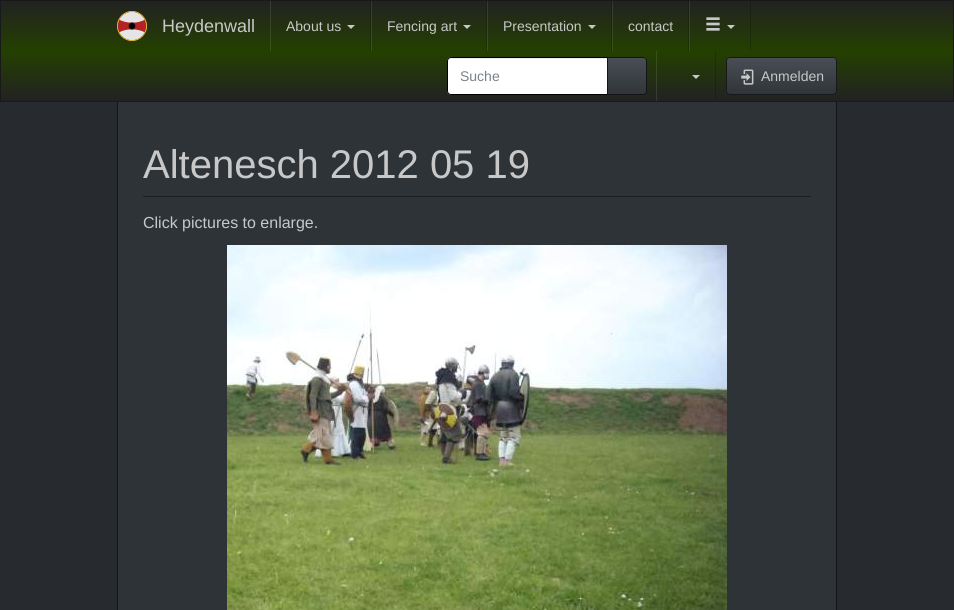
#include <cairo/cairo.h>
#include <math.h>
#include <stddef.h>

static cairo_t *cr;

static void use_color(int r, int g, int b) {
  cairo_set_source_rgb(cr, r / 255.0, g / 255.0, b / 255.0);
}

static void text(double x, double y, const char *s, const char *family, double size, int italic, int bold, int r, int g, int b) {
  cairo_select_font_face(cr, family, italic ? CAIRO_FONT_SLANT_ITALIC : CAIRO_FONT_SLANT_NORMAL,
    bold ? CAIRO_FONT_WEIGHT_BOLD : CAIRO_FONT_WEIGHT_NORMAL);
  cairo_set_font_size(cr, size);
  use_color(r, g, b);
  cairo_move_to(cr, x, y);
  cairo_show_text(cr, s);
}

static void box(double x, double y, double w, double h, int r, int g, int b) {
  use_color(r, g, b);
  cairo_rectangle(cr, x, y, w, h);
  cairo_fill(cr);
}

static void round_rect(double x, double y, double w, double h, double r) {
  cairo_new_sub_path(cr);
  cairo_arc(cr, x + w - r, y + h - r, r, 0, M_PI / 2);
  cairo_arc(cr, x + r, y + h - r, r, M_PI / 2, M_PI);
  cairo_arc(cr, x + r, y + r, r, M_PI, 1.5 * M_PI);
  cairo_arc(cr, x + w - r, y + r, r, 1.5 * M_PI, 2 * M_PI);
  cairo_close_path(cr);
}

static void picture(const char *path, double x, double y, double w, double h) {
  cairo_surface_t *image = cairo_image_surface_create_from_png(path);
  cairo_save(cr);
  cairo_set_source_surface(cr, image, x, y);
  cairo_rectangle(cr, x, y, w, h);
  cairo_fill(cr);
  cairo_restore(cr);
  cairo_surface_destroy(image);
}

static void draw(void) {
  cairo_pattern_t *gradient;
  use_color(39, 43, 48);
  cairo_paint(cr);
  box(117, 102, 720, 508, 46, 51, 56);
  cairo_rectangle(cr, 117.5, 80.5, 719, 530);
  cairo_set_source_rgba(cr, 0, 0, 0, 0.6);
  cairo_set_line_width(cr, 1);
  cairo_stroke(cr);
  gradient = cairo_pattern_create_linear(477, 1, 477, 101);
  cairo_pattern_add_color_stop_rgba(gradient, 0, 0.133, 0.133, 0.133, 1);
  cairo_pattern_add_color_stop_rgba(gradient, 0.5, 0.141, 0.251, 0, 1);
  cairo_pattern_add_color_stop_rgba(gradient, 1, 0.133, 0.133, 0.133, 1);
  cairo_set_source(cr, gradient);
  cairo_pattern_destroy(gradient);
  cairo_rectangle(cr, 1, 1, 952, 100);
  cairo_fill(cr);
  gradient = cairo_pattern_create_linear(477, 1, 477, 101);
  cairo_pattern_add_color_stop_rgba(gradient, 0, 0.22, 0.22, 0.22, 1);
  cairo_pattern_add_color_stop_rgba(gradient, 0.5, 0.227, 0.325, 0.102, 1);
  cairo_pattern_add_color_stop_rgba(gradient, 1, 0.22, 0.22, 0.22, 1);
  cairo_set_source(cr, gradient);
  cairo_pattern_destroy(gradient);
  cairo_rectangle(cr, 689, 1, 1, 50);
  cairo_fill(cr);
  gradient = cairo_pattern_create_linear(477, 1, 477, 101);
  cairo_pattern_add_color_stop_rgba(gradient, 0, 0.106, 0.106, 0.106, 1);
  cairo_pattern_add_color_stop_rgba(gradient, 0.5, 0.114, 0.2, 0, 1);
  cairo_pattern_add_color_stop_rgba(gradient, 1, 0.106, 0.106, 0.106, 1);
  cairo_set_source(cr, gradient);
  cairo_pattern_destroy(gradient);
  cairo_rectangle(cr, 750, 1, 1, 50);
  cairo_fill(cr);
  gradient = cairo_pattern_create_linear(477, 1, 477, 101);
  cairo_pattern_add_color_stop_rgba(gradient, 0, 0.22, 0.22, 0.22, 1);
  cairo_pattern_add_color_stop_rgba(gradient, 0.5, 0.227, 0.325, 0.102, 1);
  cairo_pattern_add_color_stop_rgba(gradient, 1, 0.22, 0.22, 0.22, 1);
  cairo_set_source(cr, gradient);
  cairo_pattern_destroy(gradient);
  cairo_rectangle(cr, 612, 1, 1, 50);
  cairo_fill(cr);
  gradient = cairo_pattern_create_linear(477, 1, 477, 101);
  cairo_pattern_add_color_stop_rgba(gradient, 0, 0.106, 0.106, 0.106, 1);
  cairo_pattern_add_color_stop_rgba(gradient, 0.5, 0.114, 0.2, 0, 1);
  cairo_pattern_add_color_stop_rgba(gradient, 1, 0.106, 0.106, 0.106, 1);
  cairo_set_source(cr, gradient);
  cairo_pattern_destroy(gradient);
  cairo_rectangle(cr, 688, 1, 1, 50);
  cairo_fill(cr);
  gradient = cairo_pattern_create_linear(477, 1, 477, 101);
  cairo_pattern_add_color_stop_rgba(gradient, 0, 0.22, 0.22, 0.22, 1);
  cairo_pattern_add_color_stop_rgba(gradient, 0.5, 0.227, 0.325, 0.102, 1);
  cairo_pattern_add_color_stop_rgba(gradient, 1, 0.22, 0.22, 0.22, 1);
  cairo_set_source(cr, gradient);
  cairo_pattern_destroy(gradient);
  cairo_rectangle(cr, 487, 1, 1, 50);
  cairo_fill(cr);
  gradient = cairo_pattern_create_linear(477, 1, 477, 101);
  cairo_pattern_add_color_stop_rgba(gradient, 0, 0.106, 0.106, 0.106, 1);
  cairo_pattern_add_color_stop_rgba(gradient, 0.5, 0.114, 0.2, 0, 1);
  cairo_pattern_add_color_stop_rgba(gradient, 1, 0.106, 0.106, 0.106, 1);
  cairo_set_source(cr, gradient);
  cairo_pattern_destroy(gradient);
  cairo_rectangle(cr, 611, 1, 1, 50);
  cairo_fill(cr);
  gradient = cairo_pattern_create_linear(477, 1, 477, 101);
  cairo_pattern_add_color_stop_rgba(gradient, 0, 0.22, 0.22, 0.22, 1);
  cairo_pattern_add_color_stop_rgba(gradient, 0.5, 0.227, 0.325, 0.102, 1);
  cairo_pattern_add_color_stop_rgba(gradient, 1, 0.22, 0.22, 0.22, 1);
  cairo_set_source(cr, gradient);
  cairo_pattern_destroy(gradient);
  cairo_rectangle(cr, 371, 1, 1, 50);
  cairo_fill(cr);
  gradient = cairo_pattern_create_linear(477, 1, 477, 101);
  cairo_pattern_add_color_stop_rgba(gradient, 0, 0.106, 0.106, 0.106, 1);
  cairo_pattern_add_color_stop_rgba(gradient, 0.5, 0.114, 0.2, 0, 1);
  cairo_pattern_add_color_stop_rgba(gradient, 1, 0.106, 0.106, 0.106, 1);
  cairo_set_source(cr, gradient);
  cairo_pattern_destroy(gradient);
  cairo_rectangle(cr, 486, 1, 1, 50);
  cairo_fill(cr);
  gradient = cairo_pattern_create_linear(477, 1, 477, 101);
  cairo_pattern_add_color_stop_rgba(gradient, 0, 0.22, 0.22, 0.22, 1);
  cairo_pattern_add_color_stop_rgba(gradient, 0.5, 0.227, 0.325, 0.102, 1);
  cairo_pattern_add_color_stop_rgba(gradient, 1, 0.22, 0.22, 0.22, 1);
  cairo_set_source(cr, gradient);
  cairo_pattern_destroy(gradient);
  cairo_rectangle(cr, 270, 1, 1, 50);
  cairo_fill(cr);
  gradient = cairo_pattern_create_linear(477, 1, 477, 101);
  cairo_pattern_add_color_stop_rgba(gradient, 0, 0.106, 0.106, 0.106, 1);
  cairo_pattern_add_color_stop_rgba(gradient, 0.5, 0.114, 0.2, 0, 1);
  cairo_pattern_add_color_stop_rgba(gradient, 1, 0.106, 0.106, 0.106, 1);
  cairo_set_source(cr, gradient);
  cairo_pattern_destroy(gradient);
  cairo_rectangle(cr, 370, 1, 1, 50);
  cairo_fill(cr);
  cairo_rectangle(cr, 0.5, 0.5, 953, 101);
  use_color(23, 25, 27);
  cairo_stroke(cr);
  picture("img_01.png", 117, 11, 30, 30);
  use_color(200, 200, 200);
  cairo_new_path(cr);
  cairo_move_to(cr, 347, 25);
  cairo_line_to(cr, 355, 25);
  cairo_line_to(cr, 351, 29);
  cairo_close_path(cr);
  cairo_fill(cr);
  cairo_new_path(cr);
  cairo_move_to(cr, 463, 25);
  cairo_line_to(cr, 471, 25);
  cairo_line_to(cr, 467, 29);
  cairo_close_path(cr);
  cairo_fill(cr);
  cairo_new_path(cr);
  cairo_move_to(cr, 588, 25);
  cairo_line_to(cr, 596, 25);
  cairo_line_to(cr, 592, 29);
  cairo_close_path(cr);
  cairo_fill(cr);
  picture("img_02.png", 706, 17, 14, 14);
  cairo_new_path(cr);
  cairo_move_to(cr, 727, 25);
  cairo_line_to(cr, 735, 25);
  cairo_line_to(cr, 731, 29);
  cairo_close_path(cr);
  cairo_fill(cr);
  use_color(255, 255, 255);
  cairo_new_path(cr);
  cairo_move_to(cr, 451, 57);
  cairo_line_to(cr, 608, 57);
  cairo_line_to(cr, 608, 95);
  cairo_line_to(cr, 451, 95);
  cairo_curve_to(cr, 449, 95, 447, 93, 447, 91);
  cairo_line_to(cr, 447, 61);
  cairo_curve_to(cr, 447, 59, 449, 57, 451, 57);
  cairo_close_path(cr);
  cairo_fill(cr);
  use_color(236, 236, 236);
  cairo_new_path(cr);
  cairo_move_to(cr, 451, 59);
  cairo_line_to(cr, 607, 59);
  cairo_line_to(cr, 607, 58);
  cairo_line_to(cr, 450, 58);
  cairo_curve_to(cr, 448, 58, 448, 60, 448, 62);
  cairo_curve_to(cr, 448, 60, 449, 59, 451, 59);
  cairo_close_path(cr);
  cairo_fill(cr);
  cairo_new_path(cr);
  cairo_move_to(cr, 451, 57.5);
  cairo_line_to(cr, 607.5, 57.5);
  cairo_line_to(cr, 607.5, 94.5);
  cairo_line_to(cr, 451, 94.5);
  cairo_curve_to(cr, 449, 94.5, 447.5, 93, 447.5, 91);
  cairo_line_to(cr, 447.5, 61);
  cairo_curve_to(cr, 447.5, 59, 449, 57.5, 451, 57.5);
  cairo_close_path(cr);
  use_color(0, 0, 0);
  cairo_stroke(cr);
  use_color(46, 51, 56);
  cairo_new_path(cr);
  cairo_move_to(cr, 607, 57);
  cairo_line_to(cr, 643, 57);
  cairo_curve_to(cr, 645, 57, 647, 59, 647, 61);
  cairo_line_to(cr, 647, 91);
  cairo_curve_to(cr, 647, 93, 645, 95, 643, 95);
  cairo_line_to(cr, 607, 95);
  cairo_close_path(cr);
  cairo_fill(cr);
  gradient = cairo_pattern_create_linear(627, 58, 627, 94);
  cairo_pattern_add_color_stop_rgba(gradient, 0, 0.282, 0.306, 0.333, 1);
  cairo_pattern_add_color_stop_rgba(gradient, 0.6, 0.227, 0.247, 0.267, 1);
  cairo_pattern_add_color_stop_rgba(gradient, 1, 0.192, 0.208, 0.224, 1);
  cairo_set_source(cr, gradient);
  cairo_pattern_destroy(gradient);
  cairo_rectangle(cr, 608, 58, 38, 36);
  cairo_fill(cr);
  cairo_new_path(cr);
  cairo_move_to(cr, 607.5, 57.5);
  cairo_line_to(cr, 643, 57.5);
  cairo_curve_to(cr, 645, 57.5, 646.5, 59, 646.5, 61);
  cairo_line_to(cr, 646.5, 91);
  cairo_curve_to(cr, 646.5, 93, 645, 94.5, 643, 94.5);
  cairo_line_to(cr, 607.5, 94.5);
  cairo_close_path(cr);
  cairo_set_source_rgba(cr, 0, 0, 0, 0.6);
  cairo_stroke(cr);
  cairo_set_source_rgba(cr, 0, 0, 0, 0.2);
  cairo_rectangle(cr, 715, 51, 1, 50);
  cairo_fill(cr);
  cairo_set_source_rgba(cr, 1, 1, 1, 0.1);
  cairo_rectangle(cr, 656, 51, 1, 50);
  cairo_fill(cr);
  use_color(200, 200, 200);
  cairo_new_path(cr);
  cairo_move_to(cr, 692, 75);
  cairo_line_to(cr, 700, 75);
  cairo_line_to(cr, 696, 79);
  cairo_close_path(cr);
  cairo_fill(cr);
  use_color(58, 63, 68);
  round_rect(726, 57, 111, 38, 4);
  cairo_fill(cr);
  cairo_save(cr);
  round_rect(726, 57, 111, 38, 4);
  cairo_clip(cr);
  gradient = cairo_pattern_create_linear(782, 58, 782, 94);
  cairo_pattern_add_color_stop_rgba(gradient, 0, 0.282, 0.306, 0.333, 1);
  cairo_pattern_add_color_stop_rgba(gradient, 0.6, 0.227, 0.247, 0.267, 1);
  cairo_pattern_add_color_stop_rgba(gradient, 1, 0.192, 0.208, 0.224, 1);
  cairo_set_source(cr, gradient);
  cairo_pattern_destroy(gradient);
  cairo_rectangle(cr, 727, 58, 109, 36);
  cairo_fill(cr);
  cairo_restore(cr);
  round_rect(726.5, 57.5, 110, 37, 3.5);
  cairo_set_source_rgba(cr, 0, 0, 0, 0.6);
  cairo_stroke(cr);
  picture("img_03.png", 741, 69, 13, 16);
  box(143, 196, 668, 1, 28, 30, 34);
  picture("img_04.png", 227, 245, 500, 365);
  text(162, 32, "Heydenwall", "Liberation Sans", 18, 0, 0, 200, 200, 200);
  text(286, 31, "About us", "Liberation Sans", 14, 0, 0, 200, 200, 200);
  text(387, 31, "Fencing art", "Liberation Sans", 14, 0, 0, 200, 200, 200);
  text(503, 31, "Presentation", "Liberation Sans", 14, 0, 0, 200, 200, 200);
  text(628, 31, "contact", "Liberation Sans", 14, 0, 0, 200, 200, 200);
  text(460, 81, "Suche", "Liberation Sans", 14, 0, 0, 122, 130, 136);
  text(761, 81, "Anmelden", "Liberation Sans", 14, 0, 0, 200, 200, 200);
  text(143, 178, "Altenesch 2012 05 19", "Liberation Sans", 40, 0, 0, 200, 200, 200);
  text(143, 228, "Click pictures to enlarge.", "Liberation Sans", 16, 0, 0, 200, 200, 200);
}

int main(void) {
  cairo_surface_t *surface = cairo_image_surface_create(CAIRO_FORMAT_RGB24, 954, 610);
  cr = cairo_create(surface);
  cairo_font_options_t *options = cairo_font_options_create();
  cairo_font_options_set_hint_metrics(options, CAIRO_HINT_METRICS_OFF);
  cairo_font_options_set_hint_style(options, CAIRO_HINT_STYLE_NONE);
  cairo_set_font_options(cr, options);
  cairo_set_miter_limit(cr, 4);
  draw();
  cairo_surface_write_to_png(surface, "out.png");
  cairo_font_options_destroy(options);
  cairo_destroy(cr);
  cairo_surface_destroy(surface);
  return 0;
}
